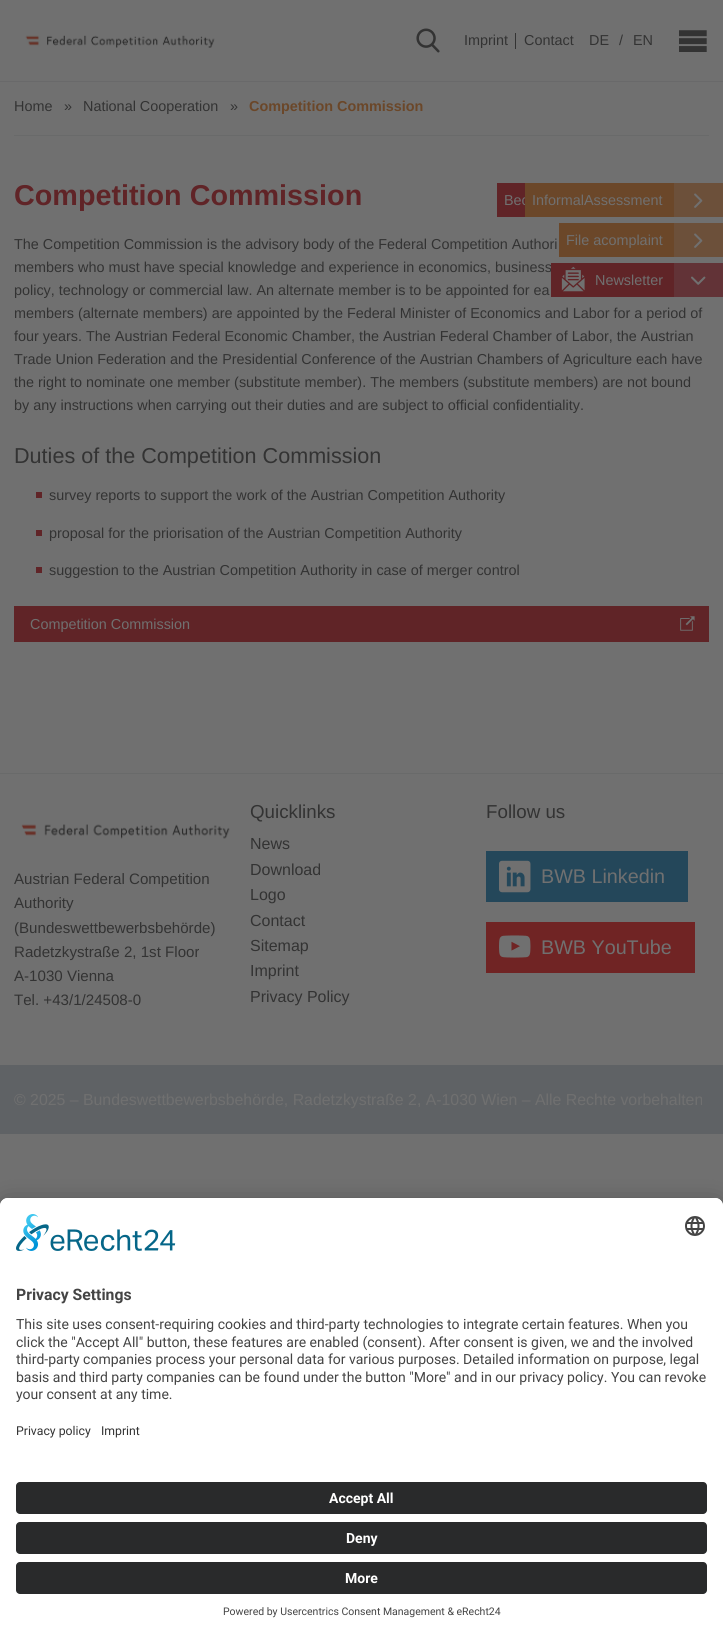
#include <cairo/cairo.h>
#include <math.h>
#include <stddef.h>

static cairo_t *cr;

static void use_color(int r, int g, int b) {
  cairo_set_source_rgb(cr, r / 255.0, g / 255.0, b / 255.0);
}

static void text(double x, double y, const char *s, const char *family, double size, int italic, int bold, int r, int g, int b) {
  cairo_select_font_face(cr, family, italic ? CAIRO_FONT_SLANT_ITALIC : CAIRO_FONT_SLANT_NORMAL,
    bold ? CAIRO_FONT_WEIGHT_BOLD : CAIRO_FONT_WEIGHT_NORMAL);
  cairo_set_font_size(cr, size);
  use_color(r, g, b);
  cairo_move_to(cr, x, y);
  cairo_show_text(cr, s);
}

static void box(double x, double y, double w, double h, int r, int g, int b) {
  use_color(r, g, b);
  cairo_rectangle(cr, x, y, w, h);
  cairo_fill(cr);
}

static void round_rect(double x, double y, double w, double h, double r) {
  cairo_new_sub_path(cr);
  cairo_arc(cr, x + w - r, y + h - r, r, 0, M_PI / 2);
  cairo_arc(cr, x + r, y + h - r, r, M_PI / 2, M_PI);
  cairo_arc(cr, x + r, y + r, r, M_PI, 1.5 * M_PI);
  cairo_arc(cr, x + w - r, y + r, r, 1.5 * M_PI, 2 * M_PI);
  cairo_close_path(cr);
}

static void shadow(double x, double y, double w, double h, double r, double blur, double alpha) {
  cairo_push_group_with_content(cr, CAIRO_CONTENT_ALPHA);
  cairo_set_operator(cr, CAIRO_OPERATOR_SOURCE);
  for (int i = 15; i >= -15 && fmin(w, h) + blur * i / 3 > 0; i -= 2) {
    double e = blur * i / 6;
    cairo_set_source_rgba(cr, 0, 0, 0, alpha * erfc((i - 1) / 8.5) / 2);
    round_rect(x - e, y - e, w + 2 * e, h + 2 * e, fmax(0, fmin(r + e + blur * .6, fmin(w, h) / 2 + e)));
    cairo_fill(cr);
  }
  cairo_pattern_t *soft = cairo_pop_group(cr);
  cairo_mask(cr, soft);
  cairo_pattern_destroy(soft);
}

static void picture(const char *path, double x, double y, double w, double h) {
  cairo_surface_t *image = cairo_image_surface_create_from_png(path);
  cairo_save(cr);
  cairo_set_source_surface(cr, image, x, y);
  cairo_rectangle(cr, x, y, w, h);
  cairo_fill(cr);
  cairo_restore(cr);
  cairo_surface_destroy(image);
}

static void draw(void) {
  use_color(112, 112, 112);
  cairo_paint(cr);
  box(0, 81, 723, 1, 105, 105, 106);
  picture("img_01.png", 416, 28, 24, 25);
  box(515, 33, 1, 16, 51, 51, 51);
  box(674, 263, 49, 34, 98, 51, 55);
  picture("img_03.png", 691, 276, 15, 9);
  picture("img_04.png", 679, 30, 28, 22);
  picture("img_05.png", 25, 35, 190, 13);
  box(497, 183, 28, 34, 96, 36, 39);
  box(674, 183, 49, 34, 108, 80, 58);
  picture("img_06.png", 694, 193, 9, 15);
  box(559, 223, 115, 34, 107, 71, 41);
  box(674, 223, 49, 34, 108, 80, 58);
  picture("img_06.png", 694, 233, 9, 15);
  box(14, 135, 695, 1, 105, 106, 106);
  box(36, 492, 6, 6, 96, 36, 39);
  box(36, 530, 6, 6, 96, 36, 39);
  box(36, 567, 6, 6, 96, 36, 39);
  box(14, 606, 695, 36, 96, 36, 39);
  picture("img_07.png", 680, 616, 15, 15);
  box(0, 773, 723, 1, 105, 106, 106);
  picture("img_08.png", 21, 824, 209, 15);
  box(486, 851, 202, 51, 36, 71, 90);
  picture("img_09.png", 499, 860, 32, 33);
  box(486, 922, 209, 51, 112, 36, 36);
  picture("img_10.png", 499, 935, 32, 23);
  box(0, 1065, 723, 69, 95, 98, 101);
  use_color(0, 0, 0);
  shadow(0, 1218, 723, 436, 8, 14, 0.3);
  shadow(0, 1203, 723, 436, 8, 13, 0.22);
  use_color(255, 255, 255);
  cairo_new_path(cr);
  cairo_move_to(cr, 8, 1198);
  cairo_line_to(cr, 715, 1198);
  cairo_curve_to(cr, 719.5, 1198, 723, 1201.5, 723, 1206);
  cairo_line_to(cr, 723, 1634);
  cairo_line_to(cr, 0, 1634);
  cairo_line_to(cr, 0, 1206);
  cairo_curve_to(cr, 0, 1201.5, 3.5, 1198, 8, 1198);
  cairo_close_path(cr);
  cairo_fill(cr);
  cairo_new_path(cr);
  cairo_move_to(cr, 8, 1198);
  cairo_line_to(cr, 715, 1198);
  cairo_curve_to(cr, 719.5, 1198, 723, 1201.5, 723, 1206);
  cairo_line_to(cr, 723, 1470);
  cairo_line_to(cr, 0, 1470);
  cairo_line_to(cr, 0, 1206);
  cairo_curve_to(cr, 0, 1201.5, 3.5, 1198, 8, 1198);
  cairo_close_path(cr);
  cairo_fill(cr);
  picture("img_11.png", 16, 1214, 160, 37);
  picture("img_12.png", 685, 1216, 20, 20);
  use_color(41, 42, 43);
  round_rect(16, 1482, 691, 32, 4);
  cairo_fill(cr);
  round_rect(16, 1522, 691, 32, 4);
  cairo_fill(cr);
  round_rect(16, 1562, 691, 32, 4);
  cairo_fill(cr);
  text(464, 45, "Imprint", "Liberation Sans", 14.4, 0, 0, 51, 51, 51);
  text(524, 45, "Contact", "Liberation Sans", 14.4, 0, 0, 51, 51, 51);
  text(589, 45, "DE", "Liberation Sans", 14.4, 0, 0, 51, 51, 51);
  text(619, 45, "/", "Liberation Sans", 14.4, 0, 0, 51, 51, 51);
  text(633, 45, "EN", "Liberation Sans", 14.4, 0, 0, 51, 51, 51);
  text(504, 205, "Bec", "Liberation Sans", 14.4, 0, 0, 112, 112, 112);
  box(525, 183, 149, 34, 107, 71, 41);
  text(532, 205, "InformalAssessment", "Liberation Sans", 14.4, 0, 0, 112, 112, 112);
  text(566, 245, "File acomplaint", "Liberation Sans", 14.4, 0, 0, 112, 112, 112);
  text(14, 111, "Home", "Liberation Sans", 14.4, 0, 0, 51, 51, 51);
  text(64, 111, "»", "Liberation Sans", 14.4, 0, 0, 51, 51, 51);
  text(83, 111, "National Cooperation", "Liberation Sans", 14.4, 0, 0, 51, 51, 51);
  text(230, 111, "»", "Liberation Sans", 14.4, 0, 0, 51, 51, 51);
  text(249, 111, "Competition Commission", "Liberation Sans", 14.4, 0, 1, 107, 71, 41);
  text(14, 205, "Competition Commission", "Liberation Sans", 28.75, 0, 1, 96, 36, 39);
  text(14, 249, "The Competition Commission is the advisory body of the Federal Competition Authori", "Liberation Sans", 14.4, 0, 0, 51, 51, 51);
  text(14, 272, "members who must have special knowledge and experience in economics, business", "Liberation Sans", 14.4, 0, 0, 51, 51, 51);
  box(551, 263, 123, 34, 96, 36, 39);
  picture("img_02.png", 561, 266, 24, 26);
  text(595, 285, "Newsletter", "Liberation Sans", 14.4, 0, 0, 112, 112, 112);
  text(14, 295, "policy, technology or commercial law. An alternate member is to be appointed for ea", "Liberation Sans", 14.4, 0, 0, 51, 51, 51);
  text(14, 318, "members (alternate members) are appointed by the Federal Minister of Economics and Labor for a period of", "Liberation Sans", 14.4, 0, 0, 51, 51, 51);
  text(14, 341, "four years. The Austrian Federal Economic Chamber, the Austrian Federal Chamber of Labor, the Austrian", "Liberation Sans", 14.4, 0, 0, 51, 51, 51);
  text(14, 364, "Trade Union Federation and the Presidential Conference of the Austrian Chambers of Agriculture each have", "Liberation Sans", 14.4, 0, 0, 51, 51, 51);
  text(14, 387, "the right to nominate one member (substitute member). The members (substitute members) are not bound", "Liberation Sans", 14.4, 0, 0, 51, 51, 51);
  text(14, 410, "by any instructions when carrying out their duties and are subject to official confidentiality.", "Liberation Sans", 14.4, 0, 0, 51, 51, 51);
  text(14, 463, "Duties of the Competition Commission", "Liberation Sans", 21.6, 0, 0, 51, 51, 51);
  text(49, 500, "survey reports to support the work of the Austrian Competition Authority", "Liberation Sans", 14.4, 0, 0, 51, 51, 51);
  text(49, 538, "proposal for the priorisation of the Austrian Competition Authority", "Liberation Sans", 14.4, 0, 0, 51, 51, 51);
  text(49, 575, "suggestion to the Austrian Competition Authority in case of merger control", "Liberation Sans", 14.4, 0, 0, 51, 51, 51);
  text(30, 629, "Competition Commission", "Liberation Sans", 14.4, 0, 0, 112, 112, 112);
  text(14, 884, "Austrian Federal Competition", "Liberation Sans", 15.1, 0, 0, 51, 51, 51);
  text(14, 908, "Authority", "Liberation Sans", 15.1, 0, 0, 51, 51, 51);
  text(14, 933, "(Bundeswettbewerbsbehörde)", "Liberation Sans", 15.1, 0, 0, 51, 51, 51);
  text(14, 957, "Radetzkystraße 2, 1st Floor", "Liberation Sans", 15.1, 0, 0, 51, 51, 51);
  text(14, 981, "A-1030 Vienna", "Liberation Sans", 15.1, 0, 0, 51, 51, 51);
  text(14, 1005, "Tel. +43/1/24508-0", "Liberation Sans", 15.1, 0, 0, 51, 51, 51);
  text(250, 818, "Quicklinks", "Liberation Sans", 18.75, 0, 0, 51, 51, 51);
  text(250, 849, "News", "Liberation Sans", 16, 0, 0, 51, 51, 51);
  text(250, 875, "Download", "Liberation Sans", 16, 0, 0, 51, 51, 51);
  text(250, 900, "Logo", "Liberation Sans", 16, 0, 0, 51, 51, 51);
  text(250, 926, "Contact", "Liberation Sans", 16, 0, 0, 51, 51, 51);
  text(250, 951, "Sitemap", "Liberation Sans", 16, 0, 0, 51, 51, 51);
  text(250, 976, "Imprint", "Liberation Sans", 16, 0, 0, 51, 51, 51);
  text(250, 1002, "Privacy Policy", "Liberation Sans", 16, 0, 0, 51, 51, 51);
  text(486, 818, "Follow us", "Liberation Sans", 18.75, 0, 0, 51, 51, 51);
  text(541, 883, "BWB Linkedin", "Liberation Sans", 19.75, 0, 0, 112, 112, 112);
  text(541, 954, "BWB YouTube", "Liberation Sans", 19.75, 0, 0, 112, 112, 112);
  text(14, 1105, "© 2025 – Bundeswettbewerbsbehörde, Radetzkystraße 2, A-1030 Wien – Alle Rechte vorbehalten", "Liberation Sans", 15.85, 0, 0, 112, 112, 112);
  text(16, 1300, "Privacy Settings", "Roboto", 15.75, 0, 1, 68, 68, 68);
  text(16, 1329, "This site uses consent-requiring cookies and third-party technologies to integrate certain features. When you", "Roboto", 14, 0, 0, 68, 68, 68);
  text(16, 1347, "click the \"Accept All\" button, these features are enabled (consent). After consent is given, we and the involved", "Roboto", 14, 0, 0, 68, 68, 68);
  text(16, 1364, "third-party companies process your personal data for various purposes. Detailed information on purpose, legal", "Roboto", 14, 0, 0, 68, 68, 68);
  text(16, 1382, "basis and third party companies can be found under the button \"More\" and in our privacy policy. You can revoke", "Roboto", 14, 0, 0, 68, 68, 68);
  text(16, 1399, "your consent at any time.", "Roboto", 14, 0, 0, 68, 68, 68);
  text(16, 1435, "Privacy policy", "Roboto", 12.25, 0, 0, 51, 51, 51);
  text(101, 1435, "Imprint", "Roboto", 12.25, 0, 0, 51, 51, 51);
  text(329, 1503, "Accept All", "Roboto", 14, 0, 1, 255, 255, 255);
  text(346, 1543, "Deny", "Roboto", 14, 0, 1, 255, 255, 255);
  text(345, 1583, "More", "Roboto", 14, 0, 1, 255, 255, 255);
  text(223, 1615, "Powered by Usercentrics Consent Management & eRecht24", "Roboto", 10.5, 0, 0, 68, 68, 68);
}

int main(void) {
  cairo_surface_t *surface = cairo_image_surface_create(CAIRO_FORMAT_RGB24, 723, 1634);
  cr = cairo_create(surface);
  cairo_font_options_t *options = cairo_font_options_create();
  cairo_font_options_set_hint_metrics(options, CAIRO_HINT_METRICS_OFF);
  cairo_font_options_set_hint_style(options, CAIRO_HINT_STYLE_NONE);
  cairo_set_font_options(cr, options);
  cairo_set_miter_limit(cr, 4);
  draw();
  cairo_surface_write_to_png(surface, "out.png");
  cairo_font_options_destroy(options);
  cairo_destroy(cr);
  cairo_surface_destroy(surface);
  return 0;
}
